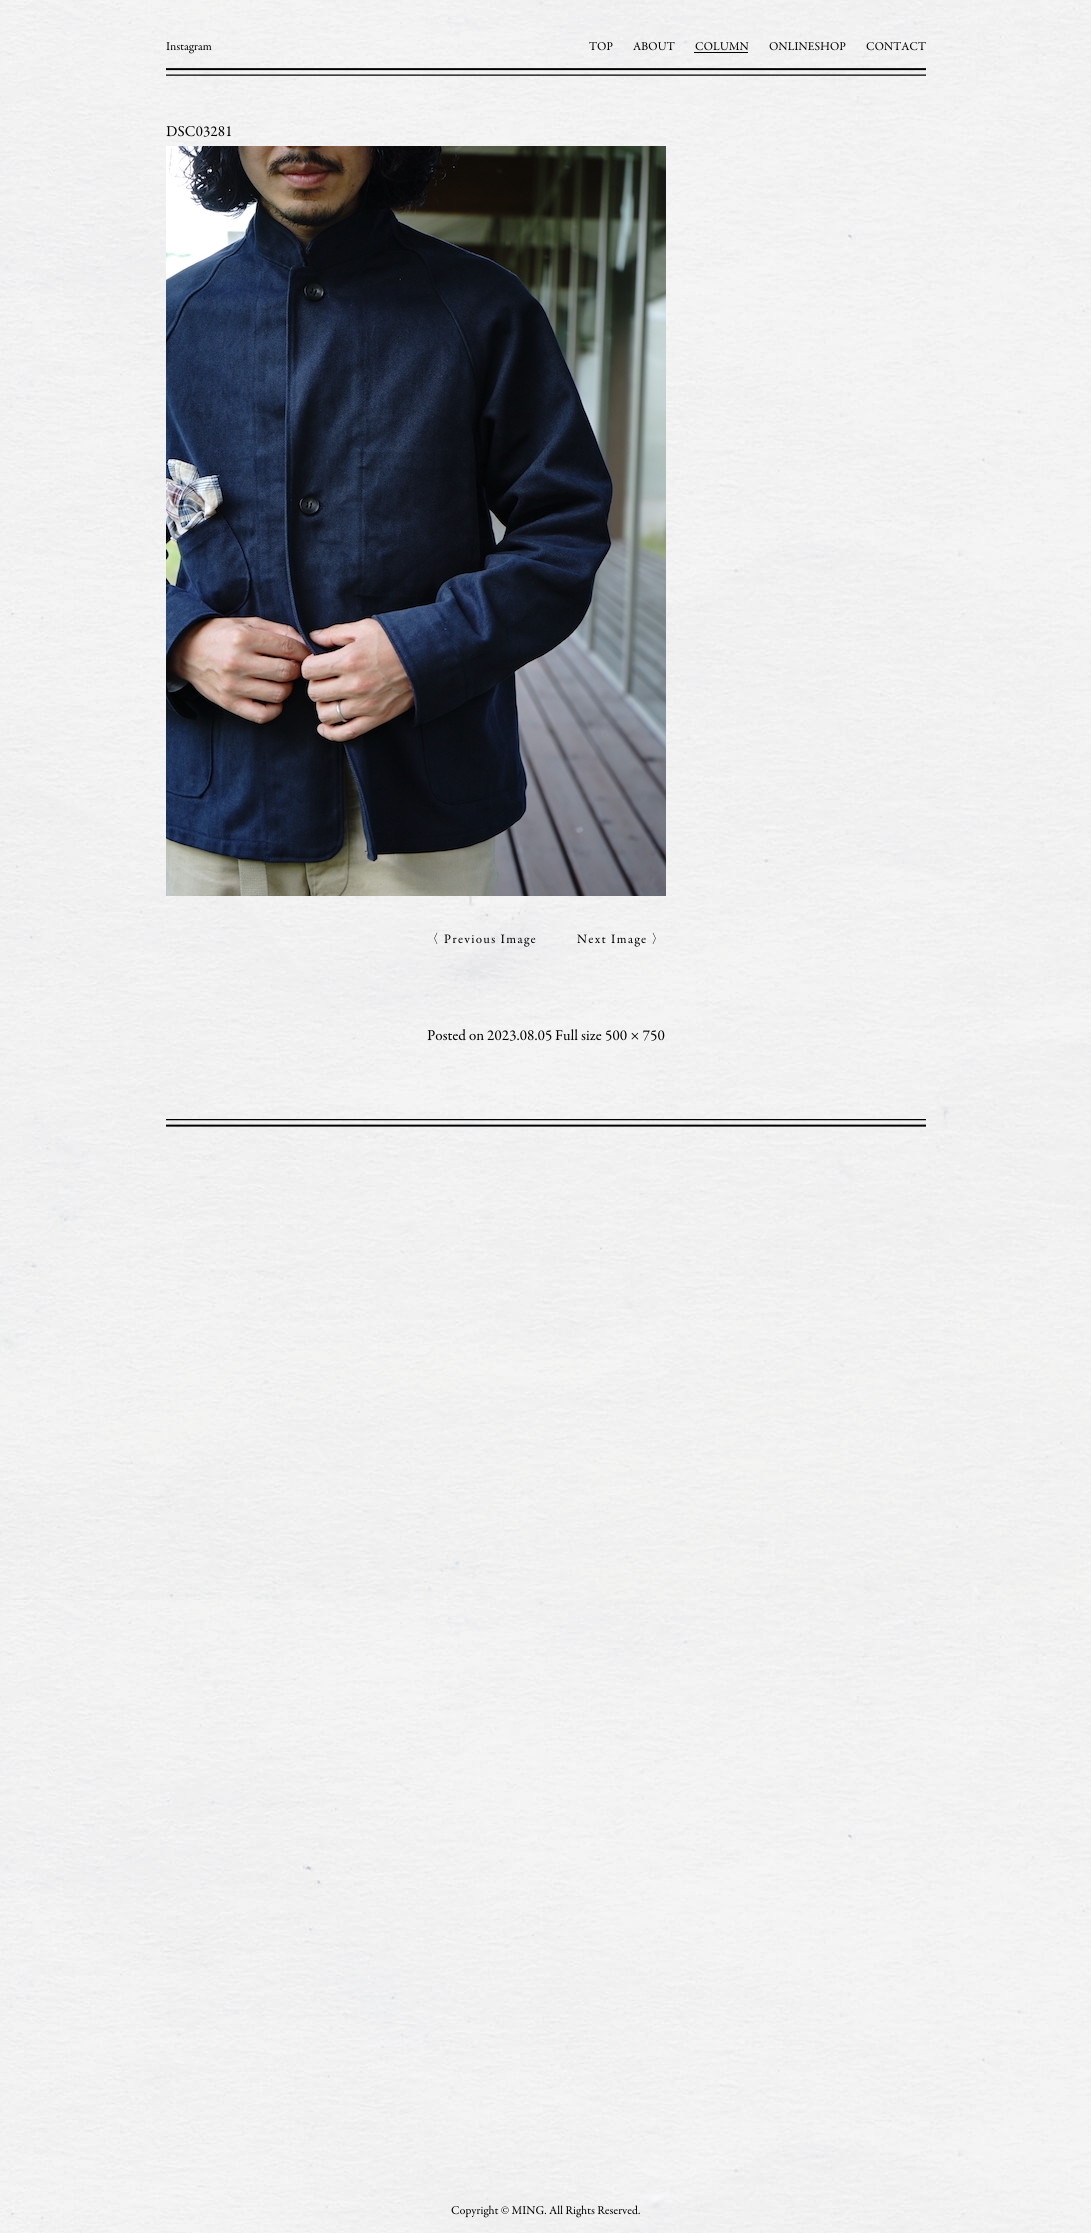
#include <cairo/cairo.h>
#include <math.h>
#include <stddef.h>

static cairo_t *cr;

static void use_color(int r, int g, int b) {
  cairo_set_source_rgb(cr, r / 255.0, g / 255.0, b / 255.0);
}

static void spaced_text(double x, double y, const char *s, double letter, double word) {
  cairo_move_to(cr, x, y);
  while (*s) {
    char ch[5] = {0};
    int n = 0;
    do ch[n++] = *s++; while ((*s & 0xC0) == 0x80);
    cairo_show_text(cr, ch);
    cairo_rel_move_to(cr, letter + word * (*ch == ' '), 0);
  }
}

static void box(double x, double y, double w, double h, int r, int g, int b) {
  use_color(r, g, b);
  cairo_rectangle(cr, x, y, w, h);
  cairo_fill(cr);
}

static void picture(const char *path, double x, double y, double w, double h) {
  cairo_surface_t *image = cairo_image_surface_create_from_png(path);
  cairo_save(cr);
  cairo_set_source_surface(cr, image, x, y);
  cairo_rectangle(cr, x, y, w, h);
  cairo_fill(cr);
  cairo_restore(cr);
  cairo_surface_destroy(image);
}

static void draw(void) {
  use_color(255, 255, 255);
  cairo_paint(cr);
  picture("img_01.png", 0, 0, 1091, 2233);
  picture("img_02.png", 166, 68, 760, 8);
  picture("img_03.png", 166, 42, 46, 12);
  picture("img_04.png", 589, 41, 24, 10);
  picture("img_05.png", 633, 41, 42, 10);
  picture("img_06.png", 695, 42, 54, 9);
  box(694, 52, 54, 1, 0, 0, 0);
  picture("img_07.png", 769, 42, 77, 9);
  picture("img_08.png", 866, 41, 60, 10);
  picture("img_09.png", 166, 126, 65, 11);
  picture("img_10.png", 166, 146, 500, 750);
  picture("img_11.png", 444, 934, 92, 13);
  picture("img_12.png", 577, 934, 69, 13);
  picture("img_13.png", 427, 1029, 57, 12);
  picture("img_14.png", 487, 1030, 65, 11);
  picture("img_15.png", 555, 1029, 47, 12);
  picture("img_16.png", 606, 1030, 59, 11);
  picture("img_17.png", 166, 1119, 760, 8);
  picture("img_18.png", 451, 2205, 189, 13);
  cairo_select_font_face(cr, "WenQuanYi Zen Hei Medium", CAIRO_FONT_SLANT_NORMAL, CAIRO_FONT_WEIGHT_NORMAL);
  cairo_set_font_size(cr, 13);
  spaced_text(426, 943, "〈", 1, 0);
  spaced_text(651, 943, "〉", 1, 0);
}

int main(void) {
  cairo_surface_t *surface = cairo_image_surface_create(CAIRO_FORMAT_RGB24, 1091, 2233);
  cr = cairo_create(surface);
  cairo_font_options_t *options = cairo_font_options_create();
  cairo_font_options_set_hint_metrics(options, CAIRO_HINT_METRICS_OFF);
  cairo_font_options_set_hint_style(options, CAIRO_HINT_STYLE_NONE);
  cairo_set_font_options(cr, options);
  cairo_set_miter_limit(cr, 4);
  draw();
  cairo_surface_write_to_png(surface, "out.png");
  cairo_font_options_destroy(options);
  cairo_destroy(cr);
  cairo_surface_destroy(surface);
  return 0;
}
